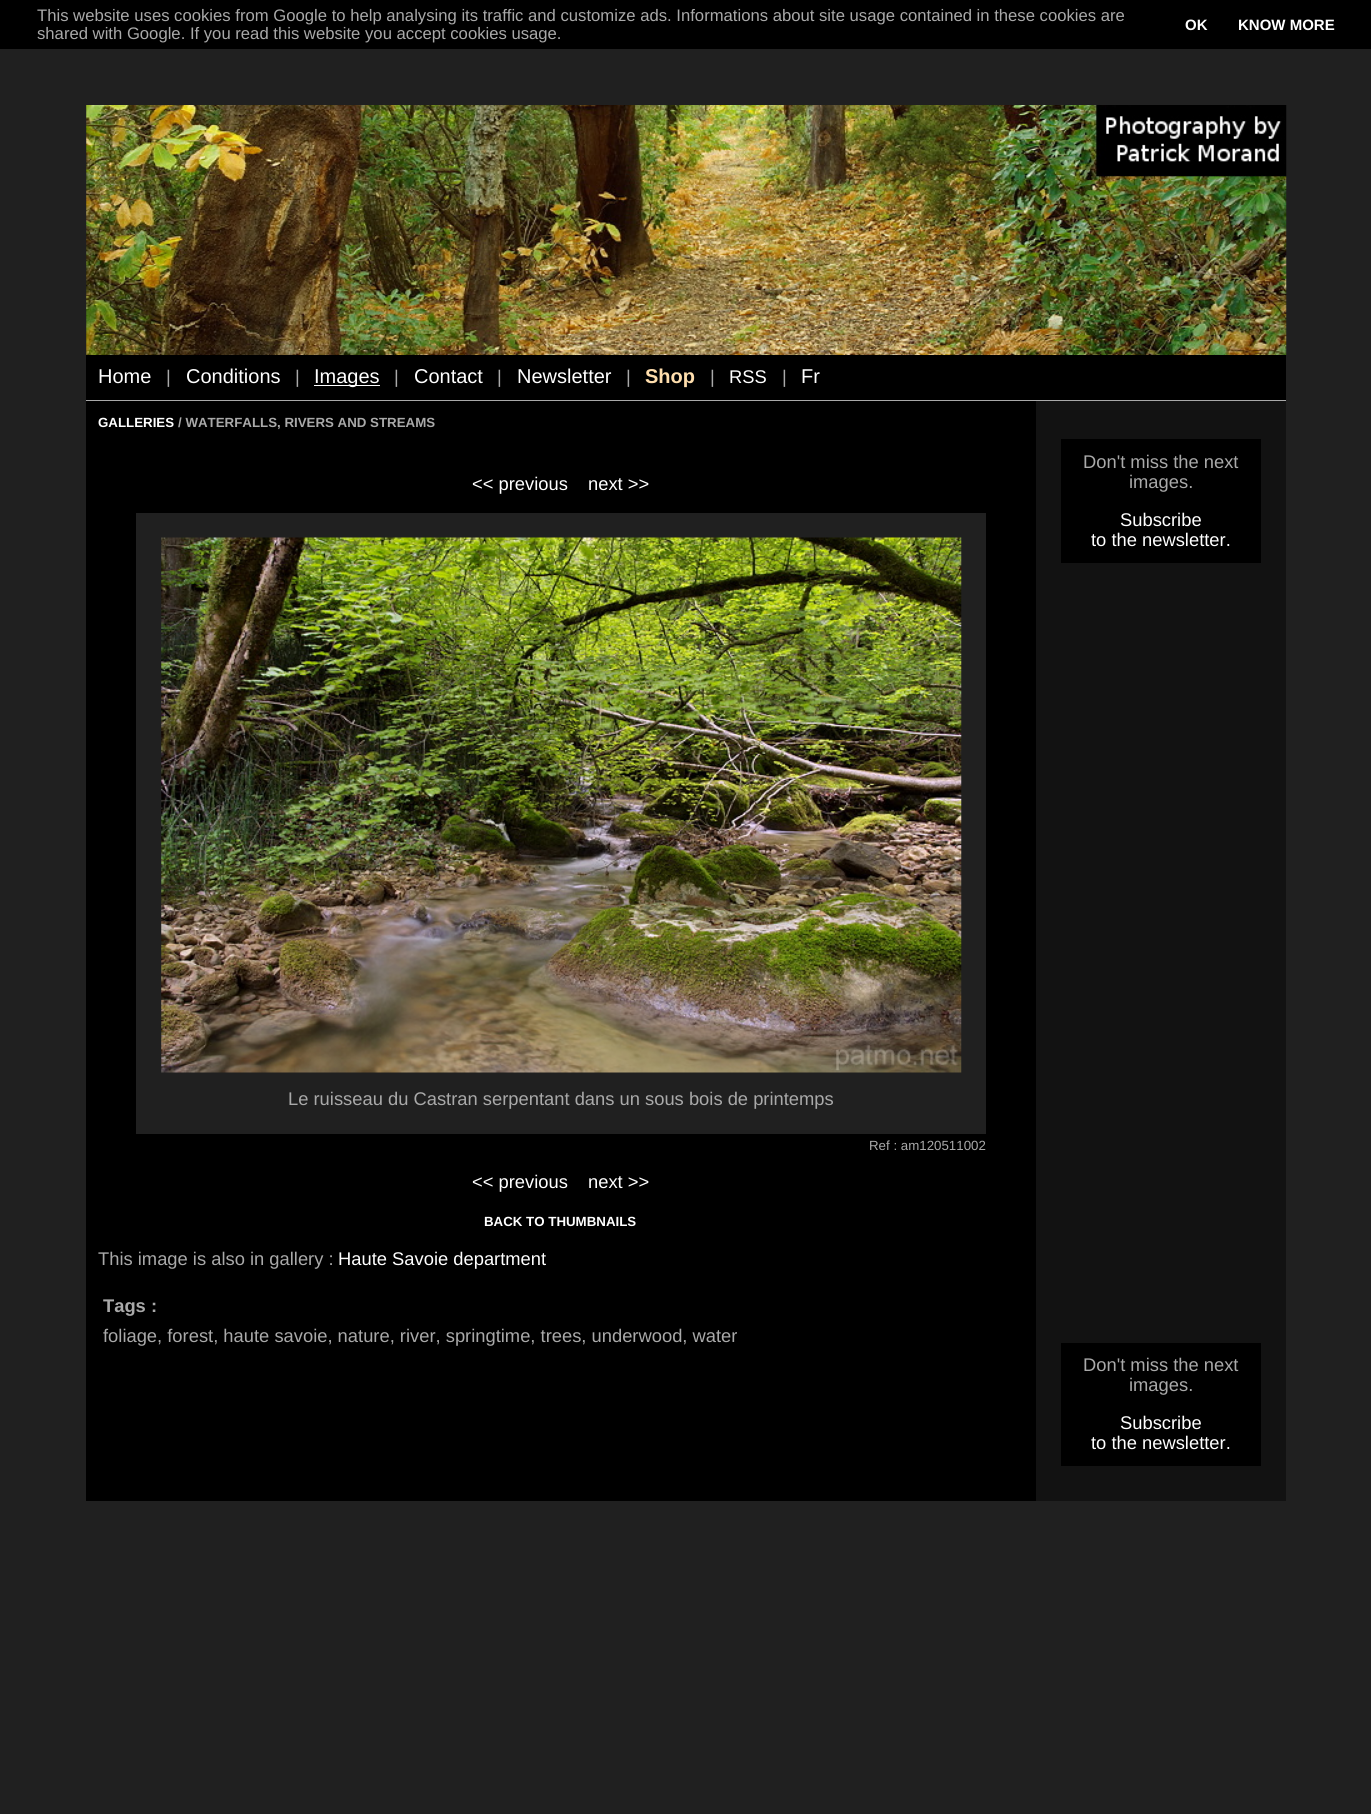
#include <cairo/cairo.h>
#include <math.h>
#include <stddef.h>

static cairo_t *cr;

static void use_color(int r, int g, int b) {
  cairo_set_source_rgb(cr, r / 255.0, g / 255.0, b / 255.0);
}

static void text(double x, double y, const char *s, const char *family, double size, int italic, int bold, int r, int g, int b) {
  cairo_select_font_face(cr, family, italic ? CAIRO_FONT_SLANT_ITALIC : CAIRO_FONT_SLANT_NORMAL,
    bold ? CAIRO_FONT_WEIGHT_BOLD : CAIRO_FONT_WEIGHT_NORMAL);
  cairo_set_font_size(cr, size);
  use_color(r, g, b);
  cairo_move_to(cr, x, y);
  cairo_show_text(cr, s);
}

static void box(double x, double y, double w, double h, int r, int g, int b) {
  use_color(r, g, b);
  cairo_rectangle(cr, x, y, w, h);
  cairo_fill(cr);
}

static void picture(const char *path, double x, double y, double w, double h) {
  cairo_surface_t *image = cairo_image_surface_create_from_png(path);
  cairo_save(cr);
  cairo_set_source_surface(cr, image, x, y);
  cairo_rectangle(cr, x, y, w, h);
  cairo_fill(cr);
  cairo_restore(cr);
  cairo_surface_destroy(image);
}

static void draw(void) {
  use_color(32, 32, 32);
  cairo_paint(cr);
  box(0, 0, 1371, 49, 0, 0, 0);
  picture("img_01.png", 86, 105, 1201, 250);
  box(86, 355, 1200, 45, 0, 0, 0);
  box(86, 400, 1200, 1, 169, 169, 169);
  box(314, 385, 66, 1, 255, 255, 255);
  box(86, 401, 950, 1100, 0, 0, 0);
  box(136, 513, 850, 621, 32, 32, 32);
  picture("img_02.png", 161, 537, 801, 536);
  box(1036, 401, 250, 1100, 18, 18, 18);
  box(1061, 439, 200, 124, 0, 0, 0);
  box(1061, 1343, 200, 123, 0, 0, 0);
  text(37, 21, "This website uses cookies from Google to help analysing its traffic and customize ads. Informations about site usage contained in these cookies are", "Liberation Sans", 16.67, 0, 0, 169, 169, 169);
  text(37, 39, "shared with Google. If you read this website you accept cookies usage.", "Liberation Sans", 16.67, 0, 0, 169, 169, 169);
  text(1185, 30, "OK", "Liberation Sans", 15, 0, 1, 255, 255, 255);
  text(1238, 30, "KNOW MORE", "Liberation Sans", 15, 0, 1, 255, 255, 255);
  text(98, 383, "Home", "Liberation Sans", 20, 0, 0, 255, 255, 255);
  text(166, 383, "|", "Liberation Sans", 18.35, 0, 0, 169, 169, 169);
  text(186, 383, "Conditions", "Liberation Sans", 20, 0, 0, 255, 255, 255);
  text(295, 383, "|", "Liberation Sans", 18.35, 0, 0, 169, 169, 169);
  text(314, 383, "Images", "Liberation Sans", 20, 0, 0, 255, 255, 255);
  text(394, 383, "|", "Liberation Sans", 18.35, 0, 0, 169, 169, 169);
  text(414, 383, "Contact", "Liberation Sans", 20, 0, 0, 255, 255, 255);
  text(497, 383, "|", "Liberation Sans", 18.35, 0, 0, 169, 169, 169);
  text(517, 383, "Newsletter", "Liberation Sans", 20, 0, 0, 255, 255, 255);
  text(626, 383, "|", "Liberation Sans", 18.35, 0, 0, 169, 169, 169);
  text(645, 383, "Shop", "Liberation Sans", 20, 0, 1, 255, 222, 173);
  text(710, 383, "|", "Liberation Sans", 18.35, 0, 0, 169, 169, 169);
  text(729, 383, "RSS", "Liberation Sans", 18.35, 0, 0, 255, 255, 255);
  text(782, 383, "|", "Liberation Sans", 18.35, 0, 0, 169, 169, 169);
  text(801, 383, "Fr", "Liberation Sans", 20, 0, 0, 255, 255, 255);
  text(98, 427, "GALLERIES", "Liberation Sans", 13.3, 0, 1, 255, 255, 255);
  text(178, 427, "/ WATERFALLS, RIVERS AND STREAMS", "Liberation Sans", 13.3, 0, 1, 169, 169, 169);
  text(472, 490, "<< previous", "Liberation Sans", 18.35, 0, 0, 255, 255, 255);
  text(588, 490, "next >>", "Liberation Sans", 18.35, 0, 0, 255, 255, 255);
  text(288, 1105, "Le ruisseau du Castran serpentant dans un sous bois de printemps", "Liberation Sans", 18.35, 0, 0, 169, 169, 169);
  text(869, 1150, "Ref : am120511002", "Liberation Sans", 13.3, 0, 0, 169, 169, 169);
  text(472, 1188, "<< previous", "Liberation Sans", 18.35, 0, 0, 255, 255, 255);
  text(588, 1188, "next >>", "Liberation Sans", 18.35, 0, 0, 255, 255, 255);
  text(484, 1226, "BACK TO THUMBNAILS", "Liberation Sans", 13.3, 0, 1, 255, 255, 255);
  text(98, 1265, "This image is also in gallery :", "Liberation Sans", 18.35, 0, 0, 169, 169, 169);
  text(338, 1265, "Haute Savoie department", "Liberation Sans", 18.35, 0, 0, 255, 255, 255);
  text(103, 1312, "Tags :", "Liberation Sans", 18.35, 0, 1, 169, 169, 169);
  text(103, 1342, "foliage, forest, haute savoie, nature, river, springtime, trees, underwood, water", "Liberation Sans", 18.35, 0, 0, 169, 169, 169);
  text(1083, 468, "Don't miss the next", "Liberation Sans", 18.35, 0, 0, 169, 169, 169);
  text(1129, 488, "images.", "Liberation Sans", 18.35, 0, 0, 169, 169, 169);
  text(1120, 526, "Subscribe", "Liberation Sans", 18.35, 0, 0, 255, 255, 255);
  text(1091, 546, "to the newsletter.", "Liberation Sans", 18.35, 0, 0, 255, 255, 255);
  text(1083, 1371, "Don't miss the next", "Liberation Sans", 18.35, 0, 0, 169, 169, 169);
  text(1129, 1391, "images.", "Liberation Sans", 18.35, 0, 0, 169, 169, 169);
  text(1120, 1429, "Subscribe", "Liberation Sans", 18.35, 0, 0, 255, 255, 255);
  text(1091, 1449, "to the newsletter.", "Liberation Sans", 18.35, 0, 0, 255, 255, 255);
}

int main(void) {
  cairo_surface_t *surface = cairo_image_surface_create(CAIRO_FORMAT_RGB24, 1371, 1814);
  cr = cairo_create(surface);
  cairo_font_options_t *options = cairo_font_options_create();
  cairo_font_options_set_hint_metrics(options, CAIRO_HINT_METRICS_OFF);
  cairo_font_options_set_hint_style(options, CAIRO_HINT_STYLE_NONE);
  cairo_set_font_options(cr, options);
  cairo_set_miter_limit(cr, 4);
  draw();
  cairo_surface_write_to_png(surface, "out.png");
  cairo_font_options_destroy(options);
  cairo_destroy(cr);
  cairo_surface_destroy(surface);
  return 0;
}
